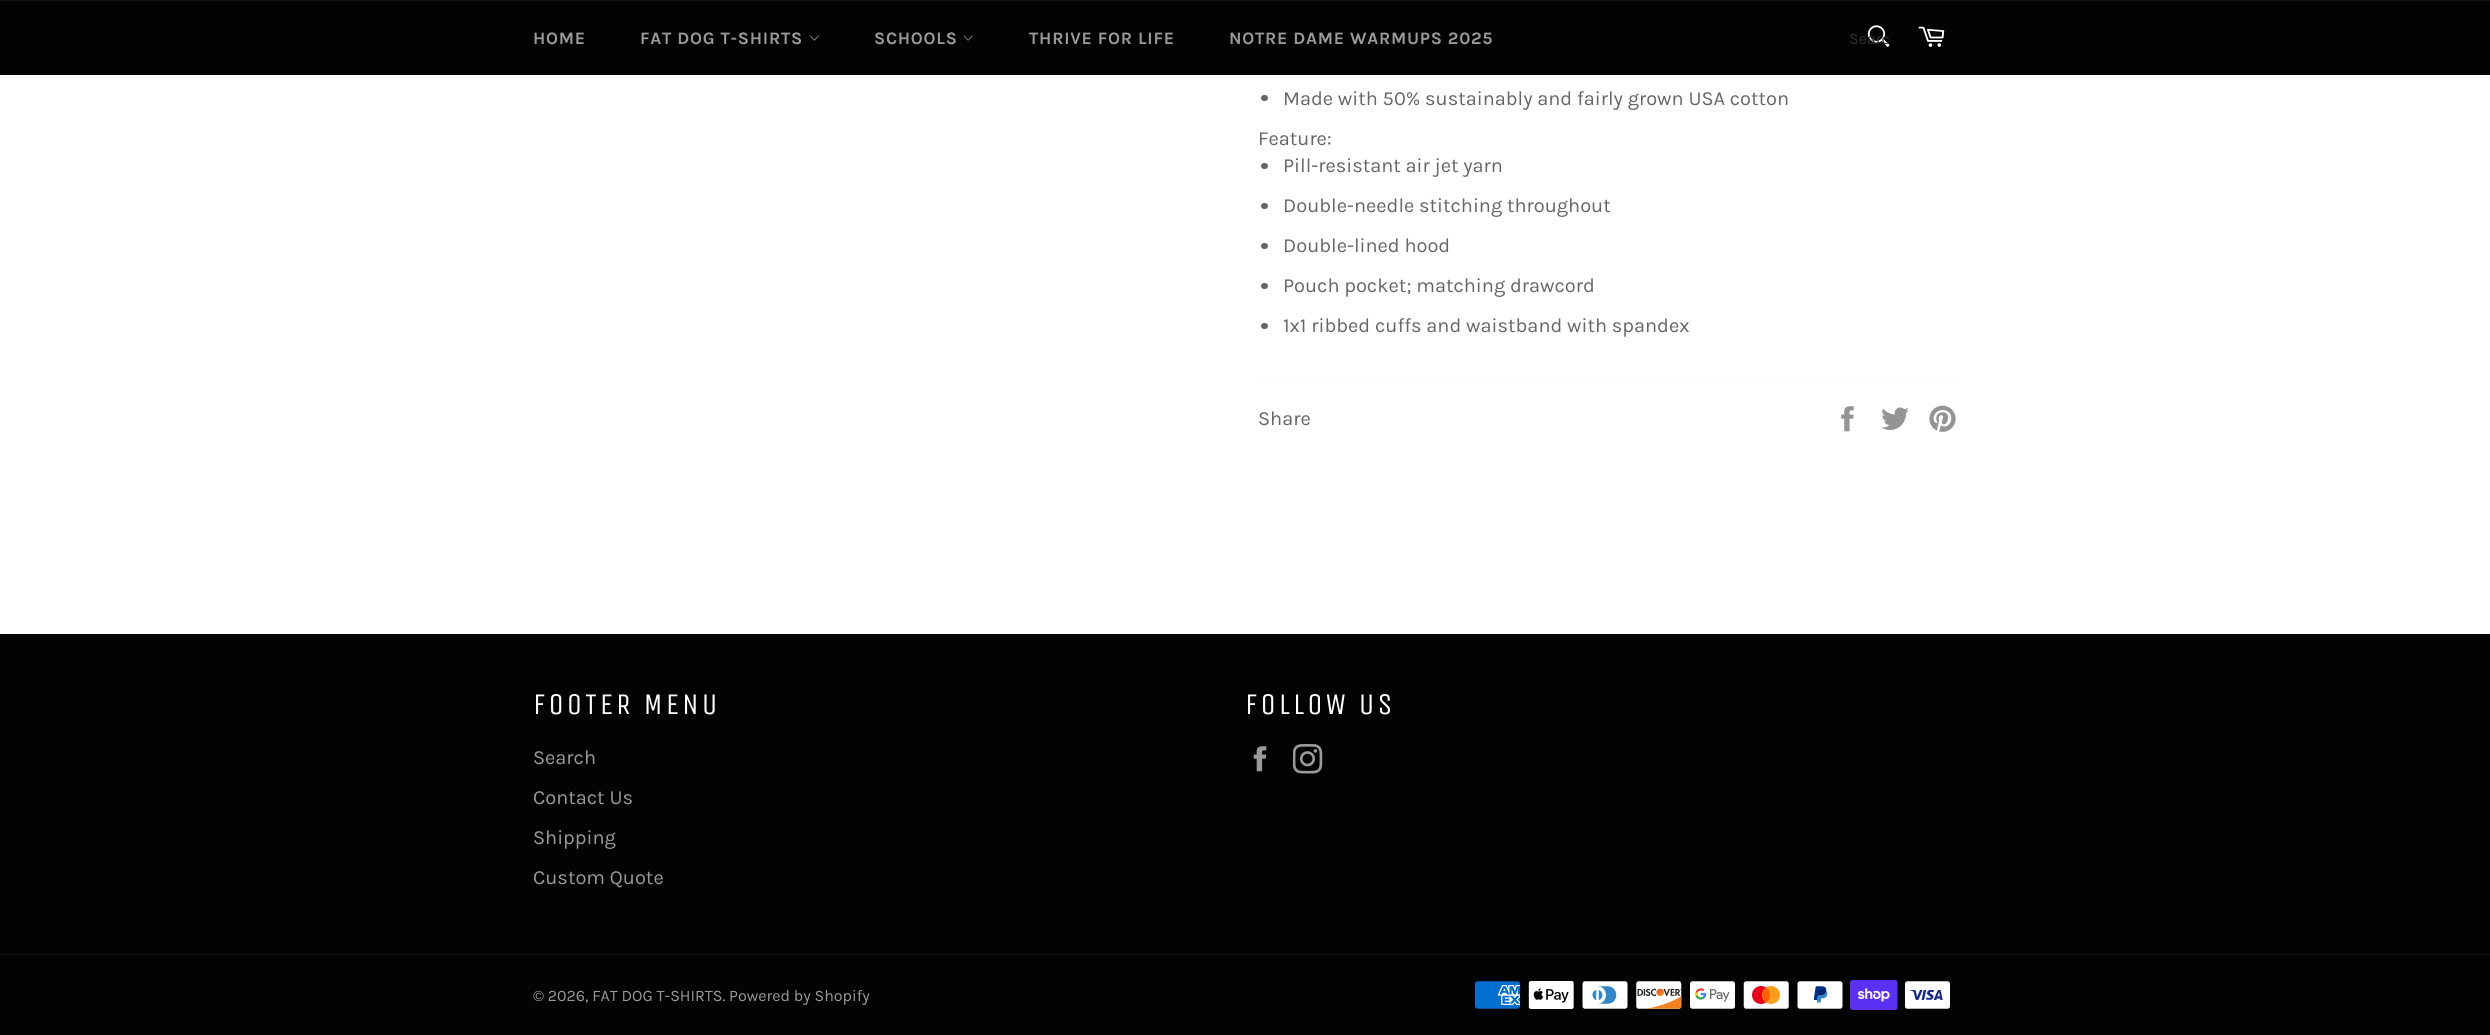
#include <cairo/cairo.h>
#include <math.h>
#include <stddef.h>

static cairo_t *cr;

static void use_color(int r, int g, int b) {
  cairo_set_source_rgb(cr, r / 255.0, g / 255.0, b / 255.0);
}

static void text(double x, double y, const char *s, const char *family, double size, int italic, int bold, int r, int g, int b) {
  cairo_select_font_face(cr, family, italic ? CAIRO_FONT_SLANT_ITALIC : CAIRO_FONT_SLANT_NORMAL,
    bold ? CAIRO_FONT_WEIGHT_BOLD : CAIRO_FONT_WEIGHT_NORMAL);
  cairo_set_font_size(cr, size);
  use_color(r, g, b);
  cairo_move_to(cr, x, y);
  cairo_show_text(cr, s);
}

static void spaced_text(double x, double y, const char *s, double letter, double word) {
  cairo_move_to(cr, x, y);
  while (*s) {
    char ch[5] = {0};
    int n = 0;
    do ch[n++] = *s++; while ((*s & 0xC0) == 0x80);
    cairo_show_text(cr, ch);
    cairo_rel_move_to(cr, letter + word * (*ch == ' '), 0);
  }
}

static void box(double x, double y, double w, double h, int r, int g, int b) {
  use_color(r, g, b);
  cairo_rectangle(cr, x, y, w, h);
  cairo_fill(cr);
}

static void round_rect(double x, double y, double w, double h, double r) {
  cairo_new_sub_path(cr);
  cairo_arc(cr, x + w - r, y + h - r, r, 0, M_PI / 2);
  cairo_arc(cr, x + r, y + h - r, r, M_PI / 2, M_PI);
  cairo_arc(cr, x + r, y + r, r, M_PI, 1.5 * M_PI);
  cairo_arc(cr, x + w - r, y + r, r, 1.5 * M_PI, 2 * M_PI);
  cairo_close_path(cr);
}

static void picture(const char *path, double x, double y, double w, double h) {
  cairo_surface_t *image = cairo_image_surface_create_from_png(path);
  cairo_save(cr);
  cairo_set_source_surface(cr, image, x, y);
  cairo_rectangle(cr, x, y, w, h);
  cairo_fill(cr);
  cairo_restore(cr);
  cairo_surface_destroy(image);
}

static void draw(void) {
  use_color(255, 255, 255);
  cairo_paint(cr);
  box(0, 1, 2490, 74, 3, 3, 3);
  box(0, 0, 2490, 1, 16, 16, 16);
  picture("img_01.png", 810, 35, 9, 6);
  picture("img_02.png", 963, 35, 10, 6);
  picture("img_03.png", 1867, 25, 23, 22);
  picture("img_04.png", 1918, 26, 27, 21);
  use_color(102, 102, 102);
  round_rect(1261, 95, 7, 6, 3);
  cairo_fill(cr);
  round_rect(1261, 163, 7, 6, 3);
  cairo_fill(cr);
  round_rect(1261, 203, 7, 6, 3);
  cairo_fill(cr);
  round_rect(1261, 243, 7, 6, 3);
  cairo_fill(cr);
  round_rect(1261, 283, 7, 6, 3);
  cairo_fill(cr);
  round_rect(1261, 323, 7, 6, 3);
  cairo_fill(cr);
  box(1258, 378, 700, 1, 247, 247, 247);
  picture("img_05.png", 1841, 406, 13, 26);
  picture("img_06.png", 1881, 407, 28, 23);
  picture("img_07.png", 1929, 405, 27, 27);
  box(0, 634, 2490, 401, 3, 3, 3);
  picture("img_08.png", 1253, 746, 14, 26);
  picture("img_09.png", 1293, 744, 30, 30);
  box(0, 954, 2490, 1, 16, 16, 16);
  picture("img_10.png", 1475, 981, 45, 28);
  picture("img_11.png", 1528, 981, 46, 28);
  picture("img_12.png", 1582, 981, 46, 28);
  picture("img_13.png", 1636, 981, 46, 28);
  picture("img_14.png", 1690, 981, 45, 28);
  picture("img_15.png", 1743, 981, 46, 28);
  picture("img_16.png", 1797, 981, 46, 28);
  picture("img_17.png", 1850, 980, 48, 30);
  picture("img_18.png", 1905, 981, 45, 28);
  cairo_select_font_face(cr, "Karla", CAIRO_FONT_SLANT_NORMAL, CAIRO_FONT_WEIGHT_BOLD);
  cairo_set_font_size(cr, 17.5);
  use_color(154, 154, 154);
  spaced_text(533, 44, "HOME", 0.75, 0);
  spaced_text(640, 44, "FAT DOG T-SHIRTS", 0.75, 0);
  spaced_text(874, 44, "SCHOOLS", 0.75, 0);
  spaced_text(1029, 44, "THRIVE FOR LIFE", 0.75, 0);
  spaced_text(1229, 44, "NOTRE DAME WARMUPS 2025", 0.75, 0);
  text(1849, 44, "Searc", "Karla", 16, 0, 0, 46, 46, 46);
  text(1283, 105, "Made with 50% sustainably and fairly grown USA cotton", "Karla", 20, 0, 0, 102, 102, 102);
  text(1258, 145, "Feature:", "Karla", 20, 0, 0, 102, 102, 102);
  text(1283, 172, "Pill-resistant air jet yarn", "Karla", 20, 0, 0, 102, 102, 102);
  text(1283, 212, "Double-needle stitching throughout", "Karla", 20, 0, 0, 102, 102, 102);
  text(1283, 252, "Double-lined hood", "Karla", 20, 0, 0, 102, 102, 102);
  text(1283, 292, "Pouch pocket; matching drawcord", "Karla", 20, 0, 0, 102, 102, 102);
  text(1283, 332, "1x1 ribbed cuffs and waistband with spandex", "Karla", 20, 0, 0, 102, 102, 102);
  text(1258, 425, "Share", "Karla", 20, 0, 0, 102, 102, 102);
  cairo_select_font_face(cr, "Unica One", CAIRO_FONT_SLANT_NORMAL, CAIRO_FONT_WEIGHT_NORMAL);
  cairo_set_font_size(cr, 30);
  use_color(255, 255, 255);
  spaced_text(533, 714, "FOOTER MENU", 3, 0);
  text(533, 764, "Search", "Karla", 20, 0, 0, 154, 154, 154);
  text(533, 804, "Contact Us", "Karla", 20, 0, 0, 154, 154, 154);
  text(533, 844, "Shipping", "Karla", 20, 0, 0, 154, 154, 154);
  text(533, 884, "Custom Quote", "Karla", 20, 0, 0, 154, 154, 154);
  cairo_select_font_face(cr, "Unica One", CAIRO_FONT_SLANT_NORMAL, CAIRO_FONT_WEIGHT_NORMAL);
  cairo_set_font_size(cr, 30);
  use_color(255, 255, 255);
  spaced_text(1245, 714, "FOLLOW US", 3, 0);
  text(533, 1001, "© 2026, FAT DOG T-SHIRTS. Powered by Shopify", "Karla", 16, 0, 0, 154, 154, 154);
}

int main(void) {
  cairo_surface_t *surface = cairo_image_surface_create(CAIRO_FORMAT_RGB24, 2490, 1035);
  cr = cairo_create(surface);
  cairo_font_options_t *options = cairo_font_options_create();
  cairo_font_options_set_hint_metrics(options, CAIRO_HINT_METRICS_OFF);
  cairo_font_options_set_hint_style(options, CAIRO_HINT_STYLE_NONE);
  cairo_set_font_options(cr, options);
  cairo_set_miter_limit(cr, 4);
  draw();
  cairo_surface_write_to_png(surface, "out.png");
  cairo_font_options_destroy(options);
  cairo_destroy(cr);
  cairo_surface_destroy(surface);
  return 0;
}
